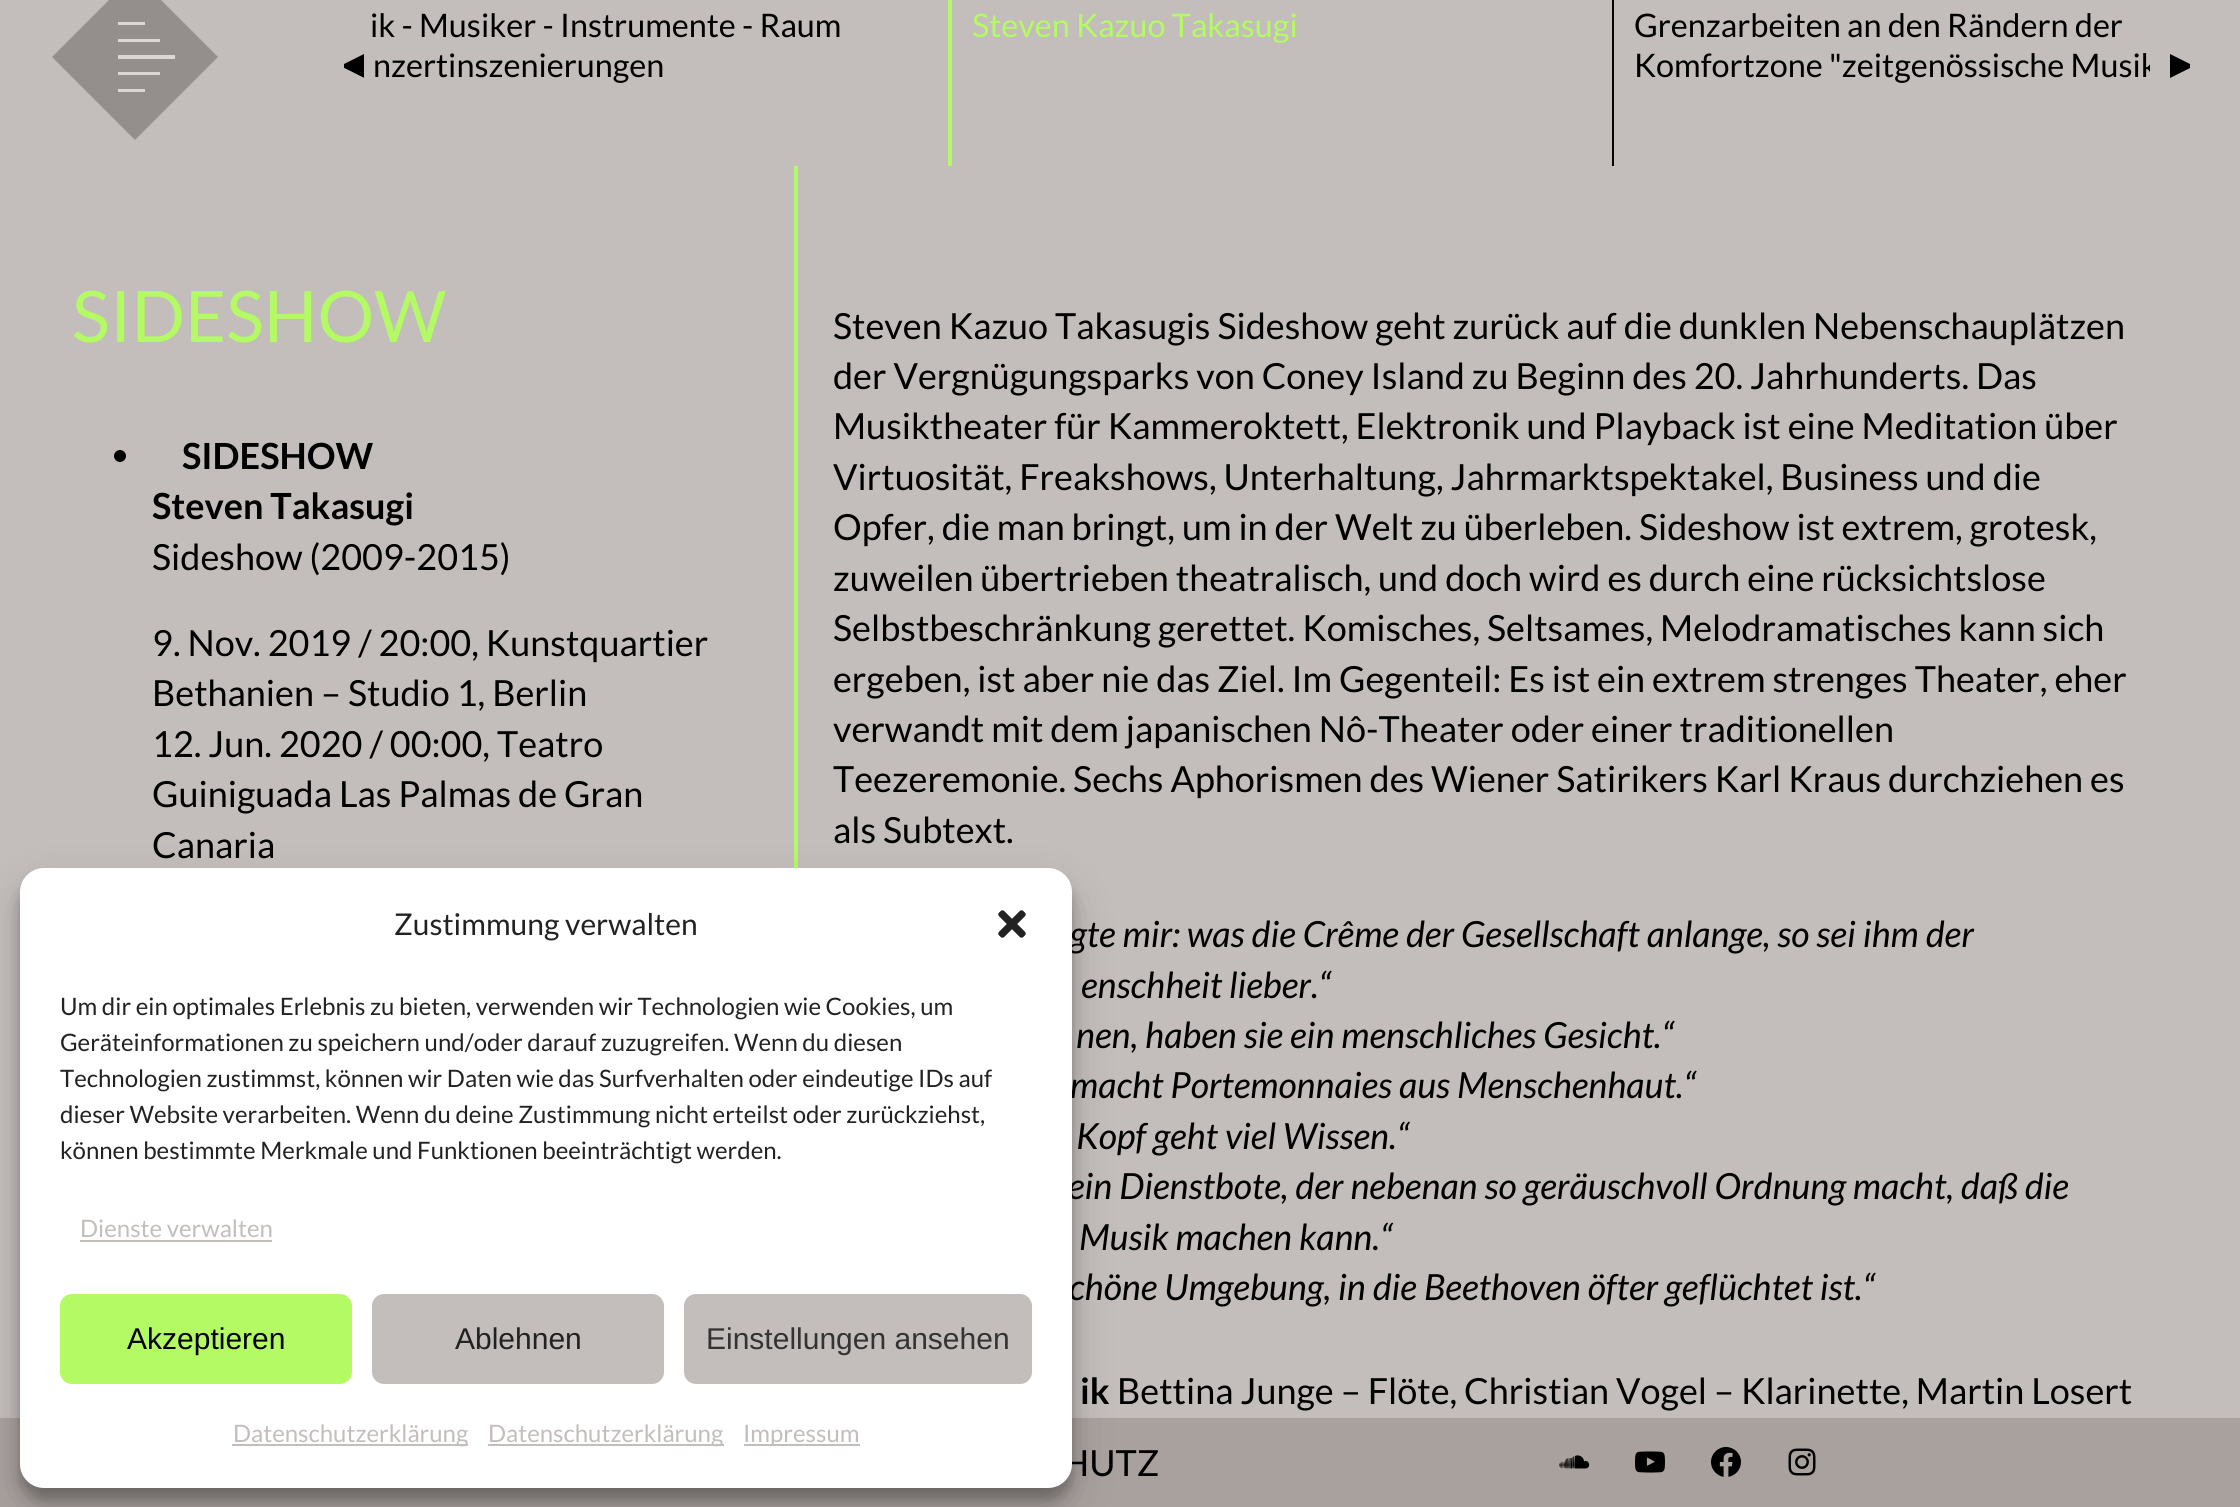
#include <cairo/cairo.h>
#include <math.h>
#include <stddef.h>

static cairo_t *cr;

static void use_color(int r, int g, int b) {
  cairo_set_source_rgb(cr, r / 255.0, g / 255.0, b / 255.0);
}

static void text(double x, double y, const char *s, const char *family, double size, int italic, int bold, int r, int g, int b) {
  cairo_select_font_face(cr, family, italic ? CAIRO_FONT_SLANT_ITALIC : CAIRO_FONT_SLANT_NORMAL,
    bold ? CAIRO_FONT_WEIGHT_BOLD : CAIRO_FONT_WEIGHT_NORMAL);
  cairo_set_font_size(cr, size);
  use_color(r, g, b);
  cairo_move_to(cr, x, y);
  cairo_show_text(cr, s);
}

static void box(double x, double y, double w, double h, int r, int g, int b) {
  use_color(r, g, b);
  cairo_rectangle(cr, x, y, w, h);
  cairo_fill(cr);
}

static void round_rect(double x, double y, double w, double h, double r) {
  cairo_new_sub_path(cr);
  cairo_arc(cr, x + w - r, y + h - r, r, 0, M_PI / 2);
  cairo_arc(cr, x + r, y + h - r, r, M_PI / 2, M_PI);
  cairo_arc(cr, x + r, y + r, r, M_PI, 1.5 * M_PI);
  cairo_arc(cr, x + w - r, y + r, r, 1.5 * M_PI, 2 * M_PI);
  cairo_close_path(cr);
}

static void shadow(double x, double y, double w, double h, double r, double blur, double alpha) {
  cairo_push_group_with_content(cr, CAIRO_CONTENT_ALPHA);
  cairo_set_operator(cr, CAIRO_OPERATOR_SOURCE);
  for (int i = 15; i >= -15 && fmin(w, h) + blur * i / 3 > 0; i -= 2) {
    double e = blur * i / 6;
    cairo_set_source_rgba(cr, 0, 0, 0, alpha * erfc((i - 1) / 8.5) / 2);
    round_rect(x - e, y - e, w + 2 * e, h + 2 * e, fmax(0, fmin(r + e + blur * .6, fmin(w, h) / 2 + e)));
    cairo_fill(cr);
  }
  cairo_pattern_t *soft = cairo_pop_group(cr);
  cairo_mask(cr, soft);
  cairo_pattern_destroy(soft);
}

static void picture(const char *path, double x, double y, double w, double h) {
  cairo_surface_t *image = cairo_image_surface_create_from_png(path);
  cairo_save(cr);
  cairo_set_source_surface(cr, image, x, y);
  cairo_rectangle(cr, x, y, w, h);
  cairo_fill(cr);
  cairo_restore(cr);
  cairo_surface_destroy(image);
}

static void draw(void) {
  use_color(195, 189, 187);
  cairo_paint(cr);
  use_color(148, 143, 141);
  cairo_new_path(cr);
  cairo_move_to(cr, 52, 57);
  cairo_line_to(cr, 135, -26);
  cairo_line_to(cr, 218, 57);
  cairo_line_to(cr, 135, 140);
  cairo_close_path(cr);
  cairo_fill(cr);
  box(118, 22, 27, 3, 219, 215, 214);
  box(118, 39, 42, 3, 219, 215, 214);
  box(118, 55, 57, 4, 219, 215, 214);
  box(118, 72, 42, 3, 219, 215, 214);
  box(118, 89, 27, 3, 219, 215, 214);
  use_color(0, 0, 0);
  cairo_new_path(cr);
  cairo_move_to(cr, 364, 54);
  cairo_line_to(cr, 364, 78);
  cairo_line_to(cr, 344, 68);
  cairo_line_to(cr, 344, 64);
  cairo_close_path(cr);
  cairo_fill(cr);
  use_color(195, 189, 187);
  cairo_new_path(cr);
  cairo_move_to(cr, 364, 78);
  cairo_line_to(cr, 320, 78);
  cairo_line_to(cr, 320, 68);
  cairo_line_to(cr, 344, 68);
  cairo_close_path(cr);
  cairo_fill(cr);
  box(948, 0, 4, 166, 180, 250, 100);
  box(1612, 0, 2, 166, 0, 0, 0);
  cairo_new_path(cr);
  cairo_move_to(cr, 2170, 78);
  cairo_line_to(cr, 2170, 54);
  cairo_line_to(cr, 2190, 64);
  cairo_line_to(cr, 2190, 68);
  cairo_close_path(cr);
  cairo_fill(cr);
  box(794, 166, 4, 702, 180, 250, 100);
  use_color(0, 0, 0);
  cairo_arc(cr, 120, 456, 6, 0, 2 * M_PI);
  cairo_fill(cr);
  box(0, 1418, 2240, 89, 169, 161, 158);
  picture("img_01.png", 1559, 1455, 31, 14);
  picture("img_02.png", 1635, 1451, 30, 22);
  picture("img_03.png", 1711, 1447, 30, 30);
  picture("img_04.png", 1788, 1448, 28, 28);
  use_color(0, 0, 0);
  shadow(20, 880, 1052, 620, 24, 6, 0.23);
  shadow(20, 888, 1052, 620, 24, 20, 0.19);
  text(370, 37, "ik - Musiker - Instrumente - Raum", "Lato", 32.4, 0, 0, 0, 0, 0);
  text(373, 77, "nzertinszenierungen", "Lato", 32.4, 0, 0, 0, 0, 0);
  text(972, 37, "Steven Kazuo Takasugi", "Lato", 32.4, 0, 0, 180, 250, 100);
  text(1634, 37, "Grenzarbeiten an den Rändern der", "Lato", 32.4, 0, 0, 0, 0, 0);
  cairo_save(cr);
  cairo_rectangle(cr, 370, 0, 1780, 166);
  cairo_clip(cr);
  text(1634, 77, "Komfortzone \"zeitgenössische Musik", "Lato", 32.4, 0, 0, 0, 0, 0);
  cairo_restore(cr);
  text(72, 342, "SIDESHOW", "Lato", 71, 0, 0, 180, 250, 100);
  text(182, 469, "SIDESHOW", "Lato", 36, 0, 1, 0, 0, 0);
  text(152, 519, "Steven Takasugi", "Lato", 36, 0, 1, 0, 0, 0);
  text(152, 570, "Sideshow (2009-2015)", "Lato", 36, 0, 0, 0, 0, 0);
  text(152, 656, "9. Nov. 2019 / 20:00, Kunstquartier", "Lato", 36, 0, 0, 0, 0, 0);
  text(152, 706, "Bethanien – Studio 1, Berlin", "Lato", 36, 0, 0, 0, 0, 0);
  text(152, 757, "12. Jun. 2020 / 00:00, Teatro", "Lato", 36, 0, 0, 0, 0, 0);
  text(152, 807, "Guiniguada Las Palmas de Gran", "Lato", 36, 0, 0, 0, 0, 0);
  text(152, 858, "Canaria", "Lato", 36, 0, 0, 0, 0, 0);
  text(833, 339, "Steven Kazuo Takasugis Sideshow geht zurück auf die dunklen Nebenschauplätzen", "Lato", 36, 0, 0, 0, 0, 0);
  text(833, 389, "der Vergnügungsparks von Coney Island zu Beginn des 20. Jahrhunderts. Das", "Lato", 36, 0, 0, 0, 0, 0);
  text(833, 439, "Musiktheater für Kammeroktett, Elektronik und Playback ist eine Meditation über", "Lato", 36, 0, 0, 0, 0, 0);
  text(833, 490, "Virtuosität, Freakshows, Unterhaltung, Jahrmarktspektakel, Business und die", "Lato", 36, 0, 0, 0, 0, 0);
  text(833, 540, "Opfer, die man bringt, um in der Welt zu überleben. Sideshow ist extrem, grotesk,", "Lato", 36, 0, 0, 0, 0, 0);
  text(833, 591, "zuweilen übertrieben theatralisch, und doch wird es durch eine rücksichtslose", "Lato", 36, 0, 0, 0, 0, 0);
  text(833, 641, "Selbstbeschränkung gerettet. Komisches, Seltsames, Melodramatisches kann sich", "Lato", 36, 0, 0, 0, 0, 0);
  text(833, 692, "ergeben, ist aber nie das Ziel. Im Gegenteil: Es ist ein extrem strenges Theater, eher", "Lato", 36, 0, 0, 0, 0, 0);
  text(833, 742, "verwandt mit dem japanischen Nô-Theater oder einer traditionellen", "Lato", 36, 0, 0, 0, 0, 0);
  text(833, 792, "Teezeremonie. Sechs Aphorismen des Wiener Satirikers Karl Kraus durchziehen es", "Lato", 36, 0, 0, 0, 0, 0);
  text(833, 843, "als Subtext.", "Lato", 36, 0, 0, 0, 0, 0);
  text(1070, 947, "gte mir: was die Crême der Gesellschaft anlange, so sei ihm der", "Lato", 36, 1, 0, 0, 0, 0);
  text(1081, 998, "enschheit lieber.“", "Lato", 36, 1, 0, 0, 0, 0);
  text(1076, 1048, "nen, haben sie ein menschliches Gesicht.“", "Lato", 36, 1, 0, 0, 0, 0);
  text(1070, 1098, "macht Portemonnaies aus Menschenhaut.“", "Lato", 36, 1, 0, 0, 0, 0);
  text(1076, 1149, "Kopf geht viel Wissen.“", "Lato", 36, 1, 0, 0, 0, 0);
  text(1068, 1199, "ein Dienstbote, der nebenan so geräuschvoll Ordnung macht, daß die", "Lato", 36, 1, 0, 0, 0, 0);
  text(1079, 1250, "Musik machen kann.“", "Lato", 36, 1, 0, 0, 0, 0);
  text(1069, 1300, "chöne Umgebung, in die Beethoven öfter geflüchtet ist.“", "Lato", 36, 1, 0, 0, 0, 0);
  text(1080, 1404, "ik", "Lato", 36, 0, 1, 0, 0, 0);
  text(1117, 1404, "Bettina Junge – Flöte, Christian Vogel – Klarinette, Martin Losert", "Lato", 36, 0, 0, 0, 0, 0);
  text(1062, 1476, "HUTZ", "Lato", 36, 0, 0, 0, 0, 0);
  use_color(255, 255, 255);
  round_rect(20, 868, 1052, 620, 24);
  cairo_fill(cr);
  text(394, 935, "Zustimmung verwalten", "Lato", 30, 0, 0, 34, 34, 34);
  picture("img_05.png", 998, 910, 28, 28);
  text(60, 1015, "Um dir ein optimales Erlebnis zu bieten, verwenden wir Technologien wie Cookies, um", "Lato", 24, 0, 0, 34, 34, 34);
  text(60, 1051, "Geräteinformationen zu speichern und/oder darauf zuzugreifen. Wenn du diesen", "Lato", 24, 0, 0, 34, 34, 34);
  text(60, 1087, "Technologien zustimmst, können wir Daten wie das Surfverhalten oder eindeutige IDs auf", "Lato", 24, 0, 0, 34, 34, 34);
  text(60, 1123, "dieser Website verarbeiten. Wenn du deine Zustimmung nicht erteilst oder zurückziehst,", "Lato", 24, 0, 0, 34, 34, 34);
  text(60, 1159, "können bestimmte Merkmale und Funktionen beeinträchtigt werden.", "Lato", 24, 0, 0, 34, 34, 34);
  text(80, 1237, "Dienste verwalten", "Lato", 24, 0, 0, 195, 189, 187);
  box(80, 1240, 192, 2, 195, 189, 187);
  use_color(180, 250, 100);
  round_rect(61, 1295, 290, 88, 11);
  cairo_fill_preserve(cr);
  cairo_stroke(cr);
  text(127, 1349, "Akzeptieren", "Liberation Sans", 30, 0, 0, 0, 0, 0);
  use_color(195, 189, 187);
  round_rect(373, 1295, 290, 88, 11);
  cairo_fill_preserve(cr);
  cairo_stroke(cr);
  text(455, 1349, "Ablehnen", "Liberation Sans", 30, 0, 0, 34, 34, 34);
  use_color(195, 189, 187);
  round_rect(685, 1295, 346, 88, 11);
  cairo_fill_preserve(cr);
  cairo_stroke(cr);
  text(706, 1349, "Einstellungen ansehen", "Liberation Sans", 30, 0, 0, 51, 51, 51);
  box(232, 1444, 236, 2, 195, 189, 187);
  text(233, 1442, "Datenschutzerklärung", "Lato", 24, 0, 0, 195, 189, 187);
  box(488, 1444, 236, 2, 195, 189, 187);
  text(488, 1442, "Datenschutzerklärung", "Lato", 24, 0, 0, 195, 189, 187);
  box(744, 1444, 116, 2, 195, 189, 187);
  text(743, 1442, "Impressum", "Lato", 24, 0, 0, 195, 189, 187);
}

int main(void) {
  cairo_surface_t *surface = cairo_image_surface_create(CAIRO_FORMAT_RGB24, 2240, 1507);
  cr = cairo_create(surface);
  cairo_font_options_t *options = cairo_font_options_create();
  cairo_font_options_set_hint_metrics(options, CAIRO_HINT_METRICS_OFF);
  cairo_font_options_set_hint_style(options, CAIRO_HINT_STYLE_NONE);
  cairo_set_font_options(cr, options);
  cairo_set_miter_limit(cr, 4);
  draw();
  cairo_surface_write_to_png(surface, "out.png");
  cairo_font_options_destroy(options);
  cairo_destroy(cr);
  cairo_surface_destroy(surface);
  return 0;
}
